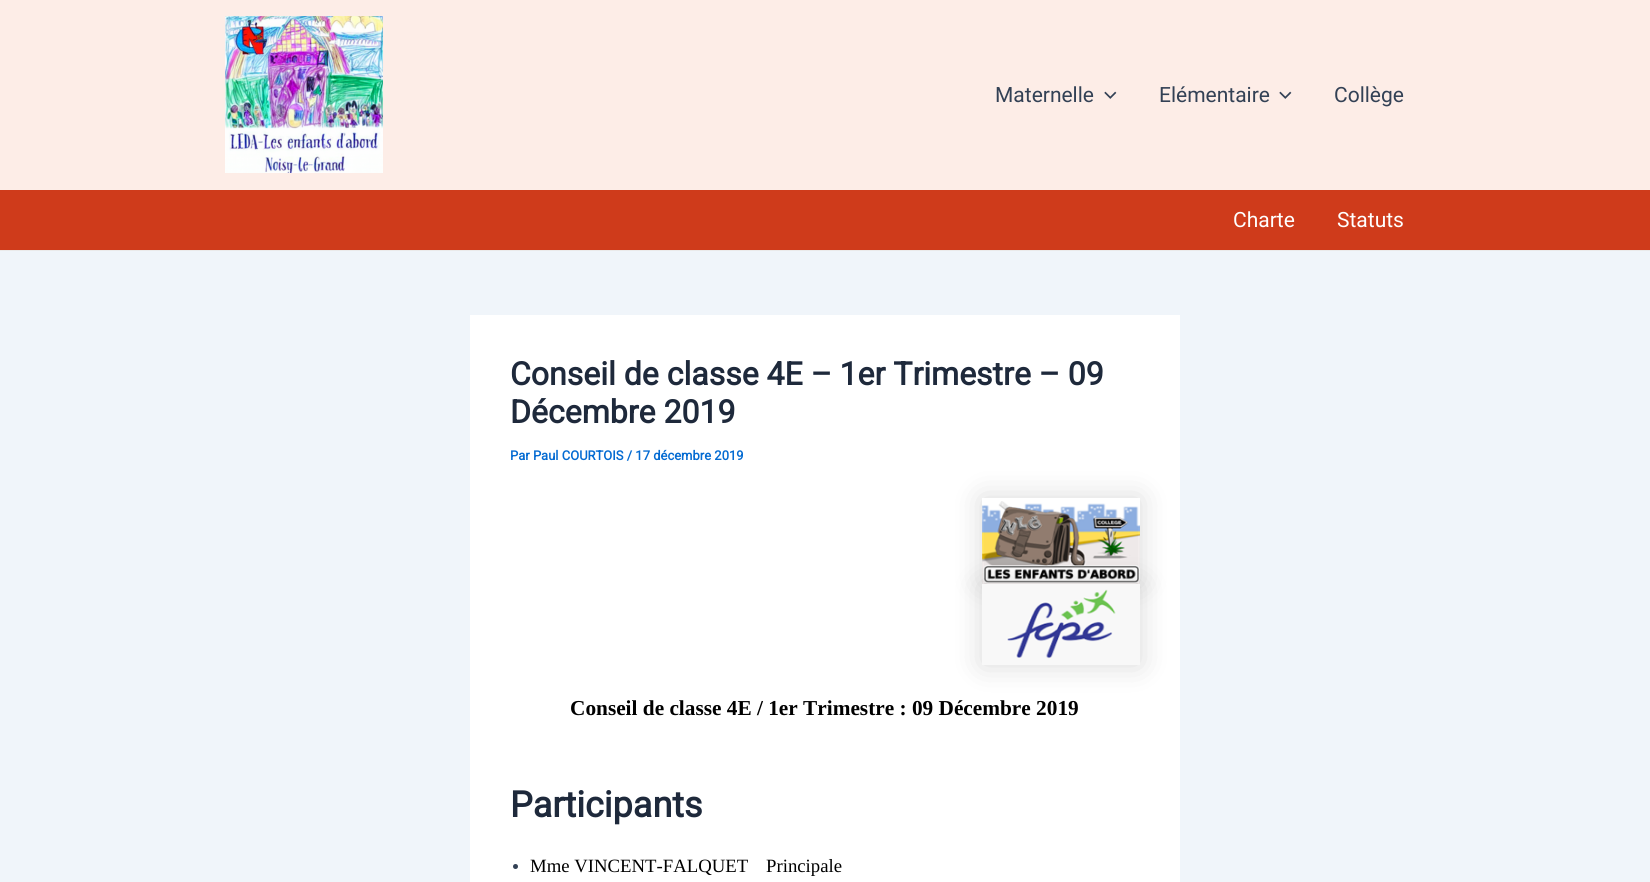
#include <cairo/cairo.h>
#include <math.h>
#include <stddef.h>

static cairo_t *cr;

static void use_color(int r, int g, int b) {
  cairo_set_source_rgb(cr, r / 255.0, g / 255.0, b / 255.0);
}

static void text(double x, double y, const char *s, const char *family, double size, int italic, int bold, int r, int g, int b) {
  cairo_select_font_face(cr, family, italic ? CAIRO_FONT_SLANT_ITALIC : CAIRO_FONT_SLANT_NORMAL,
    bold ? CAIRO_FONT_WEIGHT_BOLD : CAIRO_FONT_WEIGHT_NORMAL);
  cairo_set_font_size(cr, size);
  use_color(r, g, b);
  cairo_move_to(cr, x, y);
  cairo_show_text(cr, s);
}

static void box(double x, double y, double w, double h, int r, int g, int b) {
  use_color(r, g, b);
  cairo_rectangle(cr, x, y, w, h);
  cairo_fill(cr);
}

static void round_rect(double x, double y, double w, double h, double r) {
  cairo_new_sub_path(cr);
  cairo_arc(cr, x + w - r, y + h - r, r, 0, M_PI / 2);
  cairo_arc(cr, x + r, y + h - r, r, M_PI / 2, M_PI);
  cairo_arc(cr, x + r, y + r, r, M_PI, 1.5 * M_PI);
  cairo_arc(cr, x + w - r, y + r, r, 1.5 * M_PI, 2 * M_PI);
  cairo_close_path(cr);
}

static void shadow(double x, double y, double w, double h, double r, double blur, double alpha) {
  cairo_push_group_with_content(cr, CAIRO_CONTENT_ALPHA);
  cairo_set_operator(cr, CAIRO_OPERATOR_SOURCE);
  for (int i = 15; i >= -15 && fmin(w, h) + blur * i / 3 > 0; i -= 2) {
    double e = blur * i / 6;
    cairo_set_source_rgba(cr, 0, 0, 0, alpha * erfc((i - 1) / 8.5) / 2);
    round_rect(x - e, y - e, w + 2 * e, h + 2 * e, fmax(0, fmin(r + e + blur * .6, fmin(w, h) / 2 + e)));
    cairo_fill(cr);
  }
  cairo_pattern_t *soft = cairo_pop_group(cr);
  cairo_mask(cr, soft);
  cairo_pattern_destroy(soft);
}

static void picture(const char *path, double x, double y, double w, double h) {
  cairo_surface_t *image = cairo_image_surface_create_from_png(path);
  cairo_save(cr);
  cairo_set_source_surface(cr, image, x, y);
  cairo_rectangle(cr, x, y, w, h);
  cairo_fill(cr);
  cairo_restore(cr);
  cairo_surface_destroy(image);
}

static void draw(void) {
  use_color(240, 245, 250);
  cairo_paint(cr);
  box(0, 0, 1650, 190, 253, 237, 231);
  picture("img_01.png", 225, 16, 158, 157);
  picture("img_02.png", 1104, 91, 13, 8);
  picture("img_02.png", 1279, 91, 13, 8);
  box(0, 190, 1650, 60, 207, 59, 27);
  box(0, 250, 1650, 1, 234, 234, 234);
  box(470, 315, 710, 567, 255, 255, 255);
  cairo_save(cr);
  cairo_set_fill_rule(cr, CAIRO_FILL_RULE_EVEN_ODD);
  cairo_new_path(cr);
  cairo_move_to(cr, 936, 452);
  cairo_line_to(cr, 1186, 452);
  cairo_line_to(cr, 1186, 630);
  cairo_line_to(cr, 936, 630);
  cairo_close_path(cr);
  cairo_move_to(cr, 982, 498);
  cairo_line_to(cr, 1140, 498);
  cairo_line_to(cr, 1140, 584);
  cairo_line_to(cr, 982, 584);
  cairo_close_path(cr);
  cairo_clip(cr);
  use_color(0, 0, 0);
  shadow(982, 498, 158, 86, 0, 15, 0.15);
  cairo_restore(cr);
  picture("img_03.png", 982, 501, 158, 83);
  use_color(0, 0, 0);
  shadow(982, 584, 158, 81, 0, 15, 0.15);
  picture("img_04.png", 982, 584, 158, 81);
  use_color(51, 65, 85);
  cairo_arc(cr, 515.5, 866.5, 2.5, 0, 2 * M_PI);
  cairo_fill(cr);
  text(995, 102, "Maternelle", "Roboto", 21, 0, 0, 51, 65, 85);
  text(1159, 102, "Elémentaire", "Roboto", 21, 0, 0, 51, 65, 85);
  text(1334, 102, "Collège", "Roboto", 21, 0, 0, 51, 65, 85);
  text(1233, 227, "Charte", "Roboto", 21, 0, 0, 255, 255, 255);
  text(1337, 227, "Statuts", "Roboto", 21, 0, 0, 255, 255, 255);
  text(510, 385, "Conseil de classe 4E – 1er Trimestre – 09", "Roboto", 32, 0, 1, 30, 41, 59);
  text(510, 423, "Décembre 2019", "Roboto", 32, 0, 1, 30, 41, 59);
  text(510, 460, "Par Paul COURTOIS / 17 décembre 2019", "Roboto", 13, 0, 1, 4, 107, 210);
  text(570, 715, "Conseil de classe 4E / 1er Trimestre : 09 Décembre 2019", "Liberation Serif", 21.3, 0, 1, 0, 0, 0);
  text(510, 817, "Participants", "Roboto", 36, 0, 1, 30, 41, 59);
  text(530, 872, "Mme VINCENT-FALQUET", "Liberation Serif", 18.75, 0, 0, 0, 0, 0);
  text(766, 872, "Principale", "Liberation Serif", 18.75, 0, 0, 0, 0, 0);
}

int main(void) {
  cairo_surface_t *surface = cairo_image_surface_create(CAIRO_FORMAT_RGB24, 1650, 882);
  cr = cairo_create(surface);
  cairo_font_options_t *options = cairo_font_options_create();
  cairo_font_options_set_hint_metrics(options, CAIRO_HINT_METRICS_OFF);
  cairo_font_options_set_hint_style(options, CAIRO_HINT_STYLE_NONE);
  cairo_set_font_options(cr, options);
  cairo_set_miter_limit(cr, 4);
  draw();
  cairo_surface_write_to_png(surface, "out.png");
  cairo_font_options_destroy(options);
  cairo_destroy(cr);
  cairo_surface_destroy(surface);
  return 0;
}
